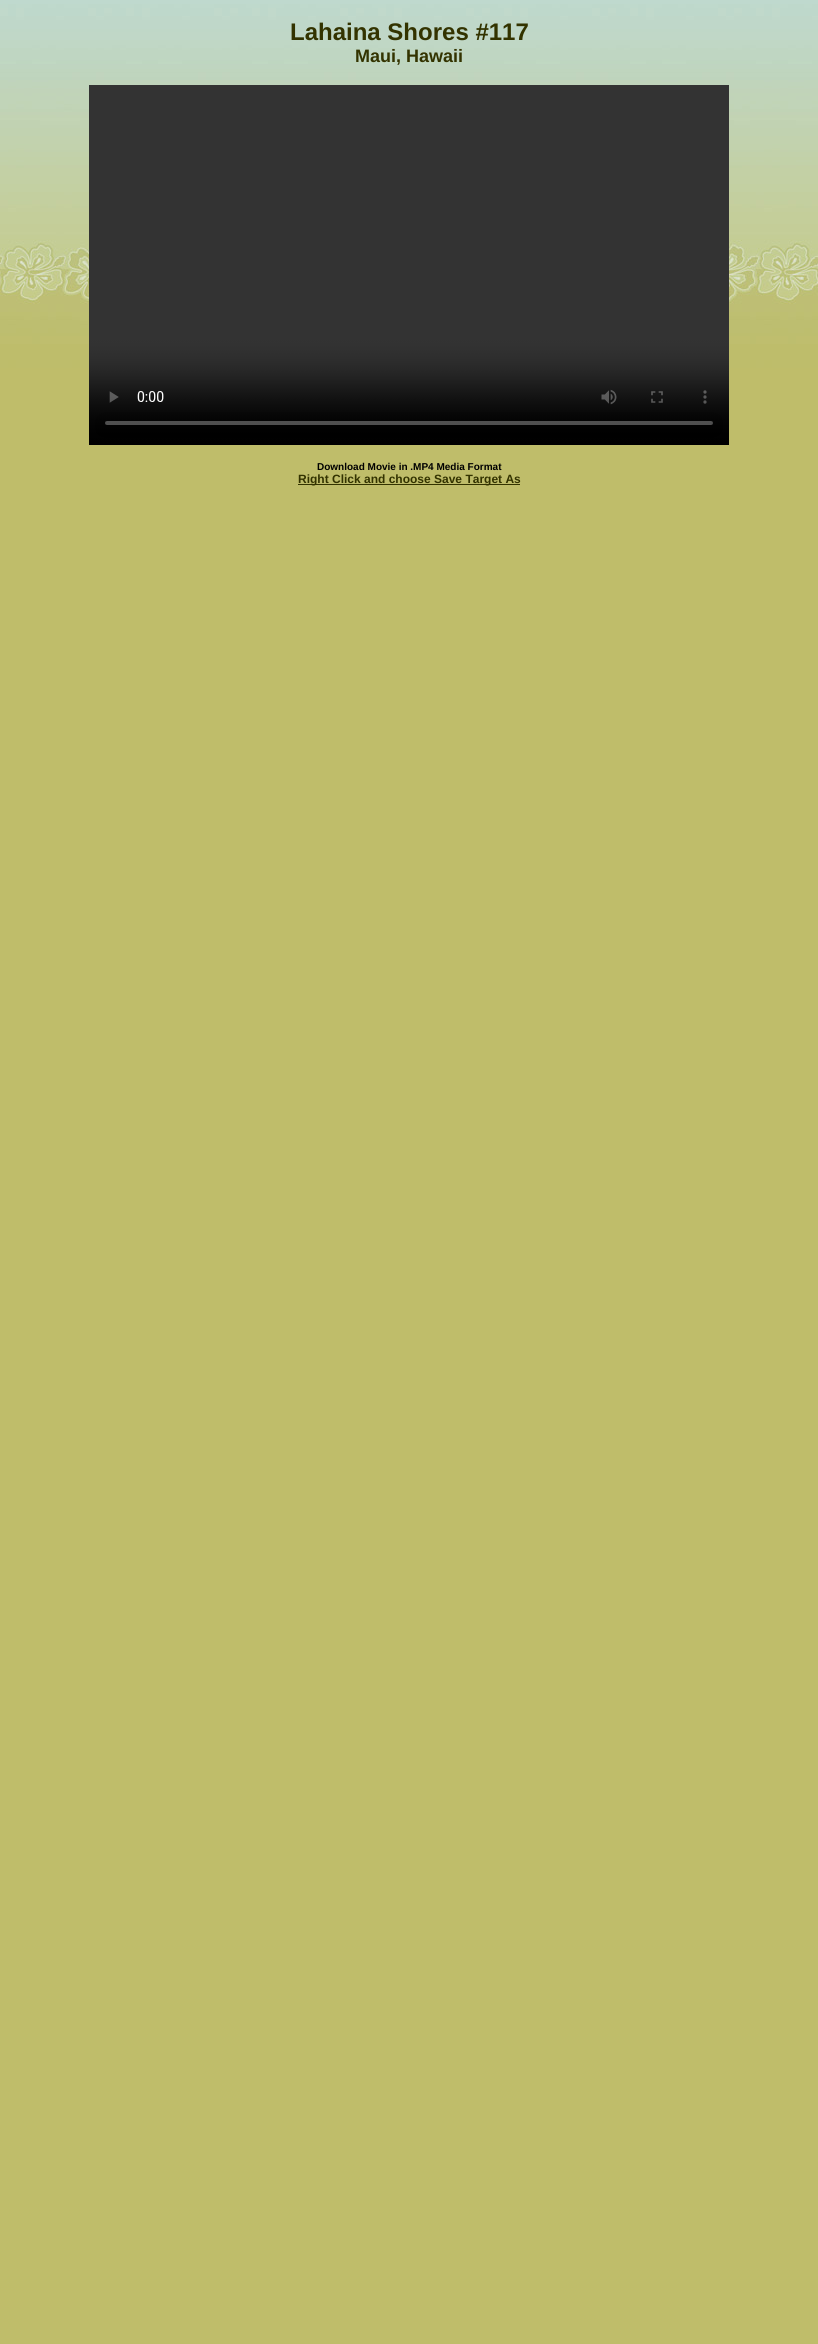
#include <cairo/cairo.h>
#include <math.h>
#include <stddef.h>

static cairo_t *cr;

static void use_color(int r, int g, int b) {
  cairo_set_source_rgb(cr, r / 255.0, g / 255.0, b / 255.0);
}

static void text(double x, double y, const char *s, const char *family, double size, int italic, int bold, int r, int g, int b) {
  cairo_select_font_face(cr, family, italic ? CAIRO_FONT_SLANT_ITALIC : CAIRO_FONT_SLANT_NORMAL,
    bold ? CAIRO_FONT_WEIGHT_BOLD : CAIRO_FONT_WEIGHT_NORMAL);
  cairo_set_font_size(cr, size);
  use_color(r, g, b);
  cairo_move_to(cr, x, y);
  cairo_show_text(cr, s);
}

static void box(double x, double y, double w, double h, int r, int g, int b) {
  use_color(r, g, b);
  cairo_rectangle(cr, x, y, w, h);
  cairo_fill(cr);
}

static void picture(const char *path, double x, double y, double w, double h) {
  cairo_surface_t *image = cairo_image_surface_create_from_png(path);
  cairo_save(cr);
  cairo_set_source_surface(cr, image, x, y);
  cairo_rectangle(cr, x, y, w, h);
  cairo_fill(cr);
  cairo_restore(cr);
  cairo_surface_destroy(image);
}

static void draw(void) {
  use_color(255, 255, 255);
  cairo_paint(cr);
  picture("img_01.png", 0, 0, 818, 2344);
  picture("img_02.png", 89, 85, 640, 360);
  box(298, 484, 222, 1, 51, 51, 0);
  text(290, 40, "Lahaina Shores #117", "Liberation Sans", 24, 0, 1, 51, 51, 0);
  text(355, 62, "Maui, Hawaii", "Liberation Sans", 18, 0, 1, 51, 51, 0);
  text(317, 470, "Download Movie in .MP4 Media Format", "Liberation Sans", 10, 0, 1, 0, 0, 0);
  text(298, 483, "Right Click and choose Save Target As", "Liberation Sans", 12, 0, 1, 51, 51, 0);
}

int main(void) {
  cairo_surface_t *surface = cairo_image_surface_create(CAIRO_FORMAT_RGB24, 818, 2344);
  cr = cairo_create(surface);
  cairo_font_options_t *options = cairo_font_options_create();
  cairo_font_options_set_hint_metrics(options, CAIRO_HINT_METRICS_OFF);
  cairo_font_options_set_hint_style(options, CAIRO_HINT_STYLE_NONE);
  cairo_set_font_options(cr, options);
  cairo_set_miter_limit(cr, 4);
  draw();
  cairo_surface_write_to_png(surface, "out.png");
  cairo_font_options_destroy(options);
  cairo_destroy(cr);
  cairo_surface_destroy(surface);
  return 0;
}
